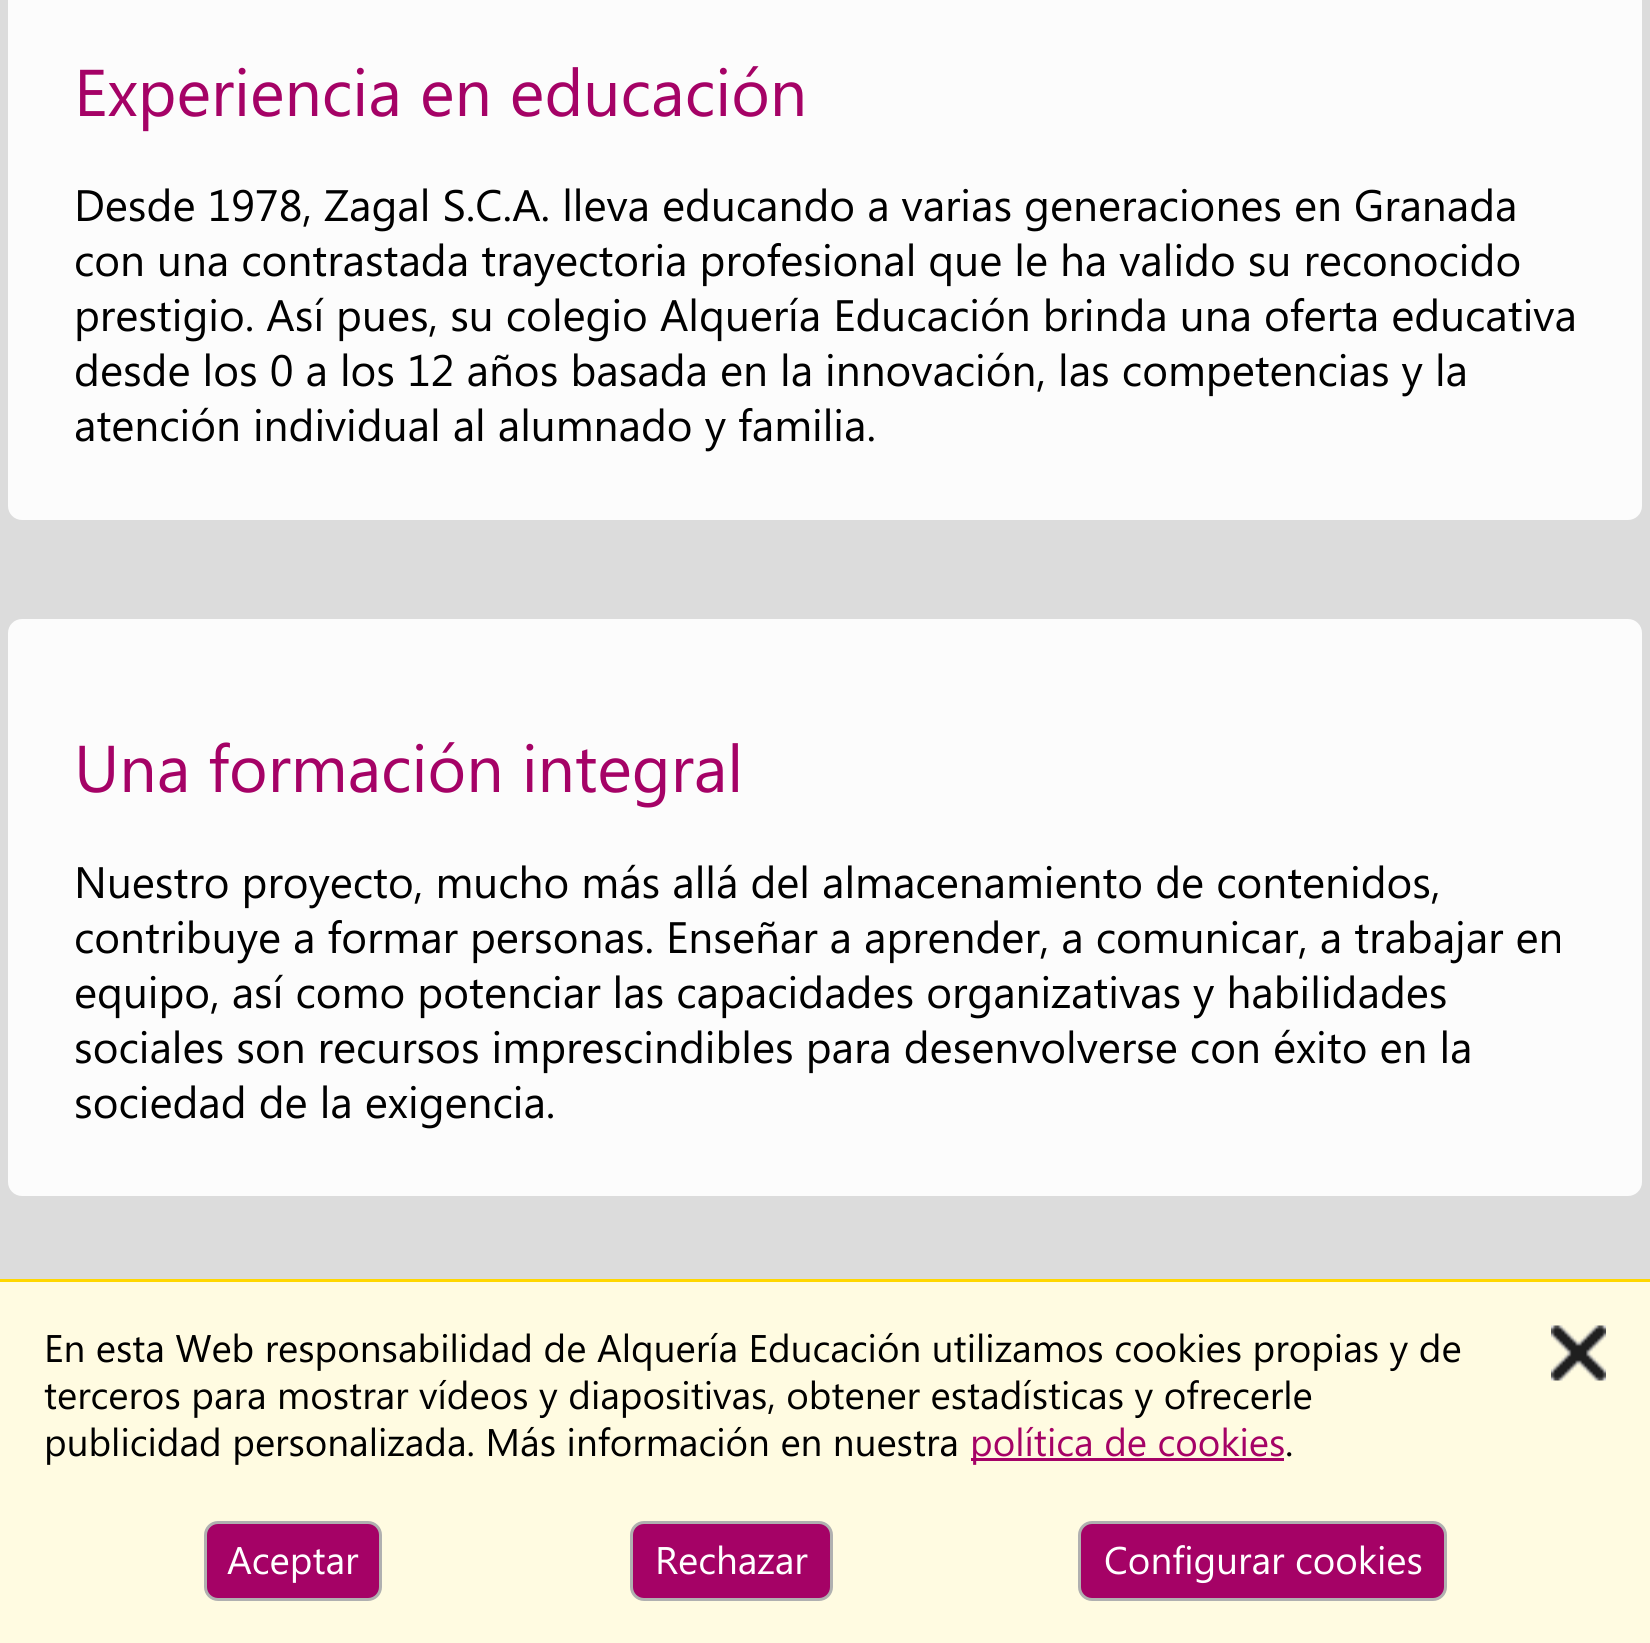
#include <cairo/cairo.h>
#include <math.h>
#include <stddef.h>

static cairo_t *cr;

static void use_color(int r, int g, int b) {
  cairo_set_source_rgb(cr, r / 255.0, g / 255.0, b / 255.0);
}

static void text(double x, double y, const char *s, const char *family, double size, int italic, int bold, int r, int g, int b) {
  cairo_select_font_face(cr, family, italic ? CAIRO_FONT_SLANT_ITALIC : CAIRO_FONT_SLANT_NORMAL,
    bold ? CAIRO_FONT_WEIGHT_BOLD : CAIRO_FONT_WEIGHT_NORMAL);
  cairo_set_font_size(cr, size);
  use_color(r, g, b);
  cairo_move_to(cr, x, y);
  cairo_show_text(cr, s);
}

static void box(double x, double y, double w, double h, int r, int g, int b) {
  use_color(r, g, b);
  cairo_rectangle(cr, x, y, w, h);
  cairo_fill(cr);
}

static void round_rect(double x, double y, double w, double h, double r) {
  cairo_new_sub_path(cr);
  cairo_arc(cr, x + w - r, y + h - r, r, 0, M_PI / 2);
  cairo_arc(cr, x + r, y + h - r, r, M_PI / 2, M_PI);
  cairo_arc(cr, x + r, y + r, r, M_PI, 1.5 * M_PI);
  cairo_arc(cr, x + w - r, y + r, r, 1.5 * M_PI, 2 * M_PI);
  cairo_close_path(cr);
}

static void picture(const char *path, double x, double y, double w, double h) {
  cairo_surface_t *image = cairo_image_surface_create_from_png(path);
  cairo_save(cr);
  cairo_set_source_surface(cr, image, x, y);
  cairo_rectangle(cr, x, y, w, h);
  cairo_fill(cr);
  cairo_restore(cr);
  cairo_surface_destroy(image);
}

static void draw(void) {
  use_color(220, 220, 220);
  cairo_paint(cr);
  use_color(252, 252, 252);
  round_rect(8, -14, 1634, 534, 14);
  cairo_fill(cr);
  round_rect(8, 619, 1634, 577, 14);
  cairo_fill(cr);
  box(0, 1282, 1650, 361, 255, 251, 225);
  box(0, 1279, 1650, 3, 255, 215, 0);
  picture("img_01.png", 1551, 1325, 55, 56);
  box(971, 1458, 313, 3, 165, 2, 102);
  round_rect(205.5, 1522.5, 175, 77, 12.5);
  cairo_fill_preserve(cr);
  use_color(176, 176, 176);
  cairo_set_line_width(cr, 3);
  cairo_stroke(cr);
  use_color(165, 2, 102);
  round_rect(631.5, 1522.5, 200, 77, 12.5);
  cairo_fill_preserve(cr);
  use_color(176, 176, 176);
  cairo_stroke(cr);
  use_color(165, 2, 102);
  round_rect(1079.5, 1522.5, 366, 77, 12.5);
  cairo_fill_preserve(cr);
  use_color(176, 176, 176);
  cairo_stroke(cr);
  text(74, 116, "Experiencia en educación", "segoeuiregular", 66, 0, 0, 165, 2, 102);
  text(74, 221, "Desde 1978, Zagal S.C.A. lleva educando a varias generaciones en Granada", "segoeuiregular", 44, 0, 0, 0, 0, 0);
  text(74, 276, "con una contrastada trayectoria profesional que le ha valido su reconocido", "segoeuiregular", 44, 0, 0, 0, 0, 0);
  text(74, 331, "prestigio. Así pues, su colegio Alquería Educación brinda una oferta educativa", "segoeuiregular", 44, 0, 0, 0, 0, 0);
  text(74, 386, "desde los 0 a los 12 años basada en la innovación, las competencias y la", "segoeuiregular", 44, 0, 0, 0, 0, 0);
  text(74, 441, "atención individual al alumnado y familia.", "segoeuiregular", 44, 0, 0, 0, 0, 0);
  text(74, 792, "Una formación integral", "segoeuiregular", 66, 0, 0, 165, 2, 102);
  text(74, 898, "Nuestro proyecto, mucho más allá del almacenamiento de contenidos,", "segoeuiregular", 44, 0, 0, 0, 0, 0);
  text(74, 953, "contribuye a formar personas. Enseñar a aprender, a comunicar, a trabajar en", "segoeuiregular", 44, 0, 0, 0, 0, 0);
  text(74, 1008, "equipo, así como potenciar las capacidades organizativas y habilidades", "segoeuiregular", 44, 0, 0, 0, 0, 0);
  text(74, 1063, "sociales son recursos imprescindibles para desenvolverse con éxito en la", "segoeuiregular", 44, 0, 0, 0, 0, 0);
  text(74, 1118, "sociedad de la exigencia.", "segoeuiregular", 44, 0, 0, 0, 0, 0);
  text(44, 1362, "En esta Web responsabilidad de Alquería Educación utilizamos cookies propias y de", "segoeuiregular", 38.5, 0, 0, 0, 0, 0);
  text(44, 1409, "terceros para mostrar vídeos y diapositivas, obtener estadísticas y ofrecerle", "segoeuiregular", 38.5, 0, 0, 0, 0, 0);
  text(44, 1456, "publicidad personalizada. Más información en nuestra", "segoeuiregular", 38.5, 0, 0, 0, 0, 0);
  text(970, 1456, "política de cookies", "segoeuiregular", 38.5, 0, 0, 165, 2, 102);
  text(1285, 1456, ".", "segoeuiregular", 38.5, 0, 0, 0, 0, 0);
  text(227, 1574, "Aceptar", "segoeuiregular", 38.5, 0, 0, 255, 255, 255);
  text(655, 1574, "Rechazar", "segoeuiregular", 38.5, 0, 0, 255, 255, 255);
  text(1104, 1574, "Configurar cookies", "segoeuiregular", 38.5, 0, 0, 255, 255, 255);
}

int main(void) {
  cairo_surface_t *surface = cairo_image_surface_create(CAIRO_FORMAT_RGB24, 1650, 1643);
  cr = cairo_create(surface);
  cairo_font_options_t *options = cairo_font_options_create();
  cairo_font_options_set_hint_metrics(options, CAIRO_HINT_METRICS_OFF);
  cairo_font_options_set_hint_style(options, CAIRO_HINT_STYLE_NONE);
  cairo_set_font_options(cr, options);
  cairo_set_miter_limit(cr, 4);
  draw();
  cairo_surface_write_to_png(surface, "out.png");
  cairo_font_options_destroy(options);
  cairo_destroy(cr);
  cairo_surface_destroy(surface);
  return 0;
}
